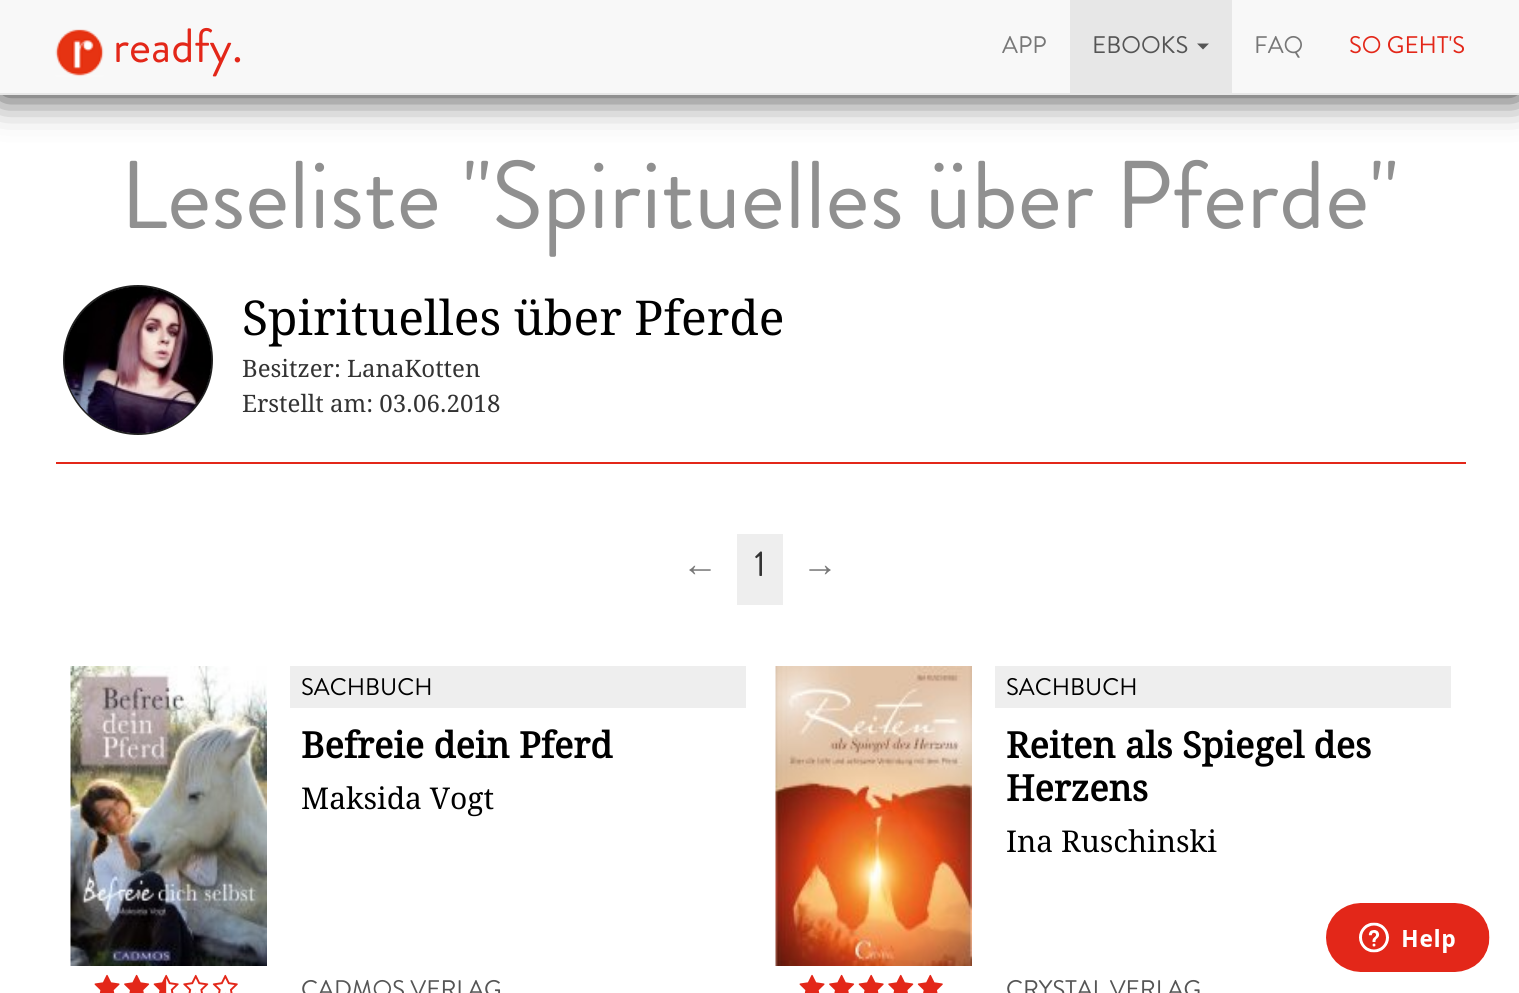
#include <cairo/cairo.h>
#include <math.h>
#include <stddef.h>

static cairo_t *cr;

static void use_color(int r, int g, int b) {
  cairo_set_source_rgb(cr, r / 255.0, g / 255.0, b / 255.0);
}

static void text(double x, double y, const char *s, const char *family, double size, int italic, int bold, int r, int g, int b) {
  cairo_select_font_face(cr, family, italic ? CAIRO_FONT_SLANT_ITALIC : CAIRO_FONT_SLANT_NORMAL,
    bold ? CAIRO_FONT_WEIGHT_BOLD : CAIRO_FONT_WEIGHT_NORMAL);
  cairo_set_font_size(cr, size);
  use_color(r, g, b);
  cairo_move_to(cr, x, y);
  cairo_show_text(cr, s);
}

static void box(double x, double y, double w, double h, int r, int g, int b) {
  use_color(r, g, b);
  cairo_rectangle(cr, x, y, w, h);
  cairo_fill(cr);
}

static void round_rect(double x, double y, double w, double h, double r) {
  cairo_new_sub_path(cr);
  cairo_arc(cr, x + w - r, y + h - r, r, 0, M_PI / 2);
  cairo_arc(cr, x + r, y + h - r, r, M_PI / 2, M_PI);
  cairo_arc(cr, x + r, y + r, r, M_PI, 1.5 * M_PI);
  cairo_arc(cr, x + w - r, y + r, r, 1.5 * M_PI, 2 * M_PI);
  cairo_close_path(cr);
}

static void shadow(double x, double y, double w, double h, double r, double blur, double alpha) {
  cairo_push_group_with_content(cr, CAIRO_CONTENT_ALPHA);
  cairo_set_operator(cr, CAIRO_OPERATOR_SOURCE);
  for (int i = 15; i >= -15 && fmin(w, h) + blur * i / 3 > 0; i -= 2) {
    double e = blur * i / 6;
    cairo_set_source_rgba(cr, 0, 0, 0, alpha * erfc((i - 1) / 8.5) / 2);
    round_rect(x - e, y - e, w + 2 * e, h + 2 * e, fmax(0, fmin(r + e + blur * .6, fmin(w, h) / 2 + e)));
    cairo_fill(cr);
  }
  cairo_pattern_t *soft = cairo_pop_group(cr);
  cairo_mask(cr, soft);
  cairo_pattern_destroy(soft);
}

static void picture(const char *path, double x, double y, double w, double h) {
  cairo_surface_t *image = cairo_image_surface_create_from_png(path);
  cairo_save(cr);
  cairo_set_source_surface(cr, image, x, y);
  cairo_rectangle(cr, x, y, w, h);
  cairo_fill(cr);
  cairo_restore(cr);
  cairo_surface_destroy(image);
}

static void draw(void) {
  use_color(255, 255, 255);
  cairo_paint(cr);
  use_color(34, 34, 34);
  shadow(0, 0, 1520, 95, 0, 19, 1);
  box(0, 0, 1519, 93, 248, 248, 248);
  box(0, 93, 1519, 2, 231, 231, 231);
  picture("img_01.png", 55, 29, 49, 48);
  box(1070, 0, 162, 93, 231, 231, 231);
  use_color(85, 85, 85);
  cairo_new_path(cr);
  cairo_move_to(cr, 1197, 43.5);
  cairo_line_to(cr, 1209, 43.5);
  cairo_line_to(cr, 1203, 49.5);
  cairo_close_path(cr);
  cairo_fill(cr);
  cairo_arc(cr, 138, 360, 74, 0, 2 * M_PI);
  use_color(34, 34, 34);
  cairo_stroke(cr);
  picture("img_02.png", 64, 286, 148, 148);
  box(56, 462, 1410, 2, 227, 39, 25);
  box(737, 534, 46, 71, 238, 238, 238);
  picture("img_03.png", 70, 666, 197, 300);
  box(290, 666, 456, 42, 238, 238, 238);
  picture("img_04.png", 94, 974, 144, 19);
  picture("img_05.png", 775, 666, 197, 300);
  box(995, 666, 456, 42, 238, 238, 238);
  picture("img_06.png", 799, 974, 144, 19);
  picture("img_07.png", 1326, 903, 164, 69);
  text(113, 62, "readfy.", "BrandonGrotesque", 48, 0, 0, 227, 39, 25);
  text(1002, 53, "APP", "BrandonGrotesque", 24, 0, 0, 119, 119, 119);
  text(1092, 53, "EBOOKS", "BrandonGrotesque", 24, 0, 0, 85, 85, 85);
  text(1254, 53, "FAQ", "BrandonGrotesque", 24, 0, 0, 119, 119, 119);
  text(1349, 53, "SO GEHT'S", "BrandonGrotesque", 24, 0, 0, 227, 39, 25);
  text(120, 228, "Leseliste \"Spirituelles über Pferde\"", "BrandonGrotesque", 96, 0, 0, 144, 144, 144);
  text(242, 335, "Spirituelles über Pferde", "Droid Serif", 48, 0, 0, 0, 0, 0);
  text(242, 377, "Besitzer: LanaKotten", "Droid Serif", 24, 0, 0, 51, 51, 51);
  text(242, 412, "Erstellt am: 03.06.2018", "Droid Serif", 24, 0, 0, 51, 51, 51);
  text(682, 576, "←", "Liberation Sans", 36, 0, 0, 119, 119, 119);
  text(754, 576, "1", "BrandonGrotesque", 36, 0, 0, 51, 51, 51);
  text(802, 576, "→", "Liberation Sans", 36, 0, 0, 119, 119, 119);
  text(301, 695, "SACHBUCH", "BrandonGrotesque", 24, 0, 0, 0, 0, 0);
  text(301, 758, "Befreie dein Pferd", "Droid Serif", 36, 0, 1, 0, 0, 0);
  text(301, 809, "Maksida Vogt", "Droid Serif", 30, 0, 0, 0, 0, 0);
  text(301, 997, "CADMOS VERLAG", "BrandonGrotesque", 24, 0, 0, 85, 85, 85);
  text(1006, 695, "SACHBUCH", "BrandonGrotesque", 24, 0, 0, 0, 0, 0);
  text(1006, 758, "Reiten als Spiegel des", "Droid Serif", 36, 0, 1, 0, 0, 0);
  text(1006, 801, "Herzens", "Droid Serif", 36, 0, 1, 0, 0, 0);
  text(1006, 852, "Ina Ruschinski", "Droid Serif", 30, 0, 0, 0, 0, 0);
  text(1006, 997, "CRYSTAL VERLAG", "BrandonGrotesque", 24, 0, 0, 85, 85, 85);
}

int main(void) {
  cairo_surface_t *surface = cairo_image_surface_create(CAIRO_FORMAT_RGB24, 1519, 993);
  cr = cairo_create(surface);
  cairo_font_options_t *options = cairo_font_options_create();
  cairo_font_options_set_hint_metrics(options, CAIRO_HINT_METRICS_OFF);
  cairo_font_options_set_hint_style(options, CAIRO_HINT_STYLE_NONE);
  cairo_set_font_options(cr, options);
  cairo_set_miter_limit(cr, 4);
  draw();
  cairo_surface_write_to_png(surface, "out.png");
  cairo_font_options_destroy(options);
  cairo_destroy(cr);
  cairo_surface_destroy(surface);
  return 0;
}
